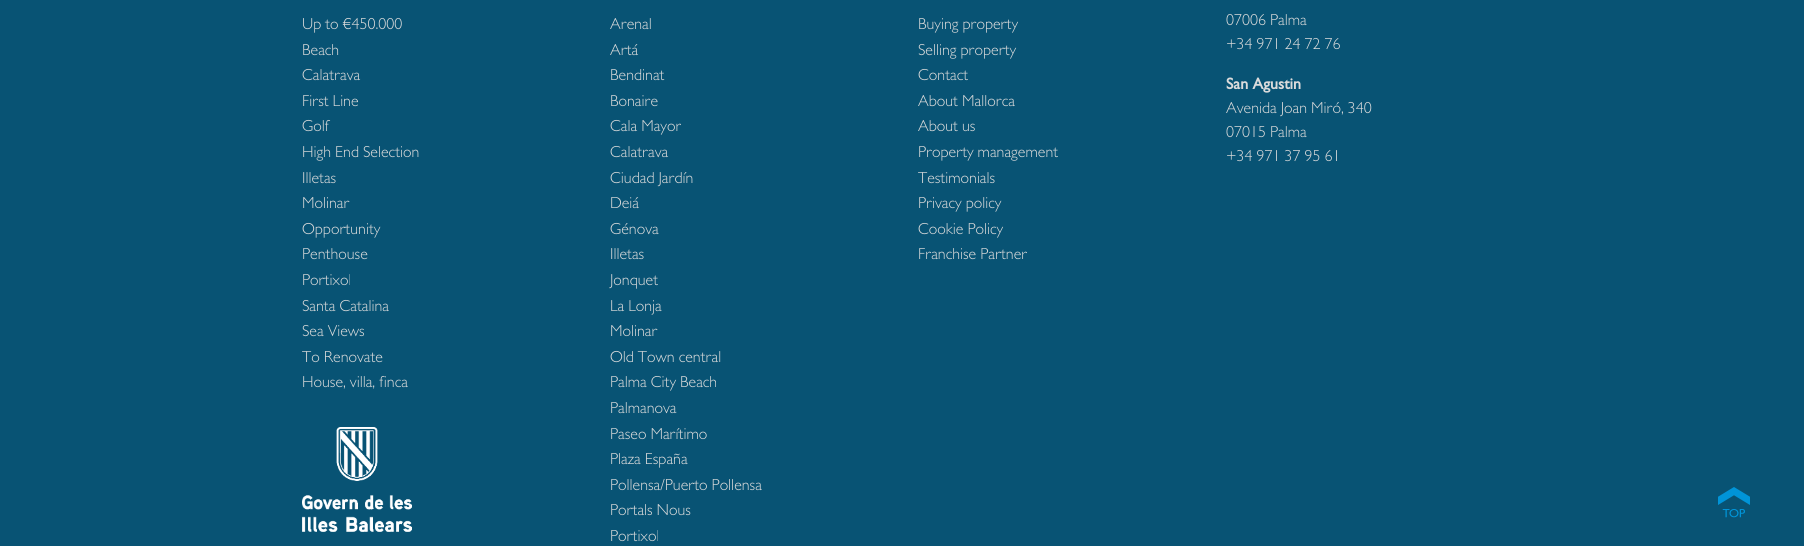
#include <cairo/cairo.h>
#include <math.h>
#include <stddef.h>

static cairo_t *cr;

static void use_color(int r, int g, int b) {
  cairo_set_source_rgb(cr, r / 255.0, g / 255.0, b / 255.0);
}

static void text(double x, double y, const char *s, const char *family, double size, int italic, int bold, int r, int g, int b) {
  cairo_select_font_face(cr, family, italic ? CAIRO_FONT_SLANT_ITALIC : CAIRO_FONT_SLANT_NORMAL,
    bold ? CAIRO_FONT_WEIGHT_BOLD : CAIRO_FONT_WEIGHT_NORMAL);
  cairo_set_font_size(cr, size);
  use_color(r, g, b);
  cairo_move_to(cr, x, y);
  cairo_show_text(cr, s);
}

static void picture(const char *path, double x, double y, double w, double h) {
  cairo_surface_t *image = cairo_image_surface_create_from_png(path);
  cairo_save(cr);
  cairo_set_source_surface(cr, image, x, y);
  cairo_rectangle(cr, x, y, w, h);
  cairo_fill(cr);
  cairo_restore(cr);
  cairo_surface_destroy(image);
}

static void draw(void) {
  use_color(8, 83, 116);
  cairo_paint(cr);
  picture("img_01.png", 302, 427, 110, 105);
  picture("img_02.png", 1718, 487, 32, 31);
  text(302, 29, "Up to €450.000", "Gill Sans Light", 16, 0, 0, 219, 219, 219);
  text(302, 55, "Beach", "Gill Sans Light", 16, 0, 0, 219, 219, 219);
  text(302, 80, "Calatrava", "Gill Sans Light", 16, 0, 0, 219, 219, 219);
  text(302, 106, "First Line", "Gill Sans Light", 16, 0, 0, 219, 219, 219);
  text(302, 131, "Golf", "Gill Sans Light", 16, 0, 0, 219, 219, 219);
  text(302, 157, "High End Selection", "Gill Sans Light", 16, 0, 0, 219, 219, 219);
  text(302, 183, "Illetas", "Gill Sans Light", 16, 0, 0, 219, 219, 219);
  text(302, 208, "Molinar", "Gill Sans Light", 16, 0, 0, 219, 219, 219);
  text(302, 234, "Opportunity", "Gill Sans Light", 16, 0, 0, 219, 219, 219);
  text(302, 259, "Penthouse", "Gill Sans Light", 16, 0, 0, 219, 219, 219);
  text(302, 285, "Portixol", "Gill Sans Light", 16, 0, 0, 219, 219, 219);
  text(302, 311, "Santa Catalina", "Gill Sans Light", 16, 0, 0, 219, 219, 219);
  text(302, 336, "Sea Views", "Gill Sans Light", 16, 0, 0, 219, 219, 219);
  text(302, 362, "To Renovate", "Gill Sans Light", 16, 0, 0, 219, 219, 219);
  text(302, 387, "House, villa, finca", "Gill Sans Light", 16, 0, 0, 219, 219, 219);
  text(610, 29, "Arenal", "Gill Sans Light", 16, 0, 0, 219, 219, 219);
  text(610, 55, "Artá", "Gill Sans Light", 16, 0, 0, 219, 219, 219);
  text(610, 80, "Bendinat", "Gill Sans Light", 16, 0, 0, 219, 219, 219);
  text(610, 106, "Bonaire", "Gill Sans Light", 16, 0, 0, 219, 219, 219);
  text(610, 131, "Cala Mayor", "Gill Sans Light", 16, 0, 0, 219, 219, 219);
  text(610, 157, "Calatrava", "Gill Sans Light", 16, 0, 0, 219, 219, 219);
  text(610, 183, "Ciudad Jardín", "Gill Sans Light", 16, 0, 0, 219, 219, 219);
  text(610, 208, "Deiá", "Gill Sans Light", 16, 0, 0, 219, 219, 219);
  text(610, 234, "Génova", "Gill Sans Light", 16, 0, 0, 219, 219, 219);
  text(610, 259, "Illetas", "Gill Sans Light", 16, 0, 0, 219, 219, 219);
  text(610, 285, "Jonquet", "Gill Sans Light", 16, 0, 0, 219, 219, 219);
  text(610, 311, "La Lonja", "Gill Sans Light", 16, 0, 0, 219, 219, 219);
  text(610, 336, "Molinar", "Gill Sans Light", 16, 0, 0, 219, 219, 219);
  text(610, 362, "Old Town central", "Gill Sans Light", 16, 0, 0, 219, 219, 219);
  text(610, 387, "Palma City Beach", "Gill Sans Light", 16, 0, 0, 219, 219, 219);
  text(610, 413, "Palmanova", "Gill Sans Light", 16, 0, 0, 219, 219, 219);
  text(610, 439, "Paseo Marítimo", "Gill Sans Light", 16, 0, 0, 219, 219, 219);
  text(610, 464, "Plaza España", "Gill Sans Light", 16, 0, 0, 219, 219, 219);
  text(610, 490, "Pollensa/Puerto Pollensa", "Gill Sans Light", 16, 0, 0, 219, 219, 219);
  text(610, 515, "Portals Nous", "Gill Sans Light", 16, 0, 0, 219, 219, 219);
  text(610, 541, "Portixol", "Gill Sans Light", 16, 0, 0, 219, 219, 219);
  text(918, 29, "Buying property", "Gill Sans Light", 16, 0, 0, 219, 219, 219);
  text(918, 55, "Selling property", "Gill Sans Light", 16, 0, 0, 219, 219, 219);
  text(918, 80, "Contact", "Gill Sans Light", 16, 0, 0, 219, 219, 219);
  text(918, 106, "About Mallorca", "Gill Sans Light", 16, 0, 0, 219, 219, 219);
  text(918, 131, "About us", "Gill Sans Light", 16, 0, 0, 219, 219, 219);
  text(918, 157, "Property management", "Gill Sans Light", 16, 0, 0, 219, 219, 219);
  text(918, 183, "Testimonials", "Gill Sans Light", 16, 0, 0, 219, 219, 219);
  text(918, 208, "Privacy policy", "Gill Sans Light", 16, 0, 0, 219, 219, 219);
  text(918, 234, "Cookie Policy", "Gill Sans Light", 16, 0, 0, 219, 219, 219);
  text(918, 259, "Franchise Partner", "Gill Sans Light", 16, 0, 0, 219, 219, 219);
  text(1226, 25, "07006 Palma", "Gill Sans Light", 16, 0, 0, 219, 219, 219);
  text(1226, 49, "+34 971 24 72 76", "Gill Sans Light", 16, 0, 0, 219, 219, 219);
  text(1226, 89, "San Agustin", "Gill Sans", 16, 0, 1, 219, 219, 219);
  text(1226, 113, "Avenida Joan Miró, 340", "Gill Sans Light", 16, 0, 0, 219, 219, 219);
  text(1226, 137, "07015 Palma", "Gill Sans Light", 16, 0, 0, 219, 219, 219);
  text(1226, 161, "+34 971 37 95 61", "Gill Sans Light", 16, 0, 0, 219, 219, 219);
}

int main(void) {
  cairo_surface_t *surface = cairo_image_surface_create(CAIRO_FORMAT_RGB24, 1804, 546);
  cr = cairo_create(surface);
  cairo_font_options_t *options = cairo_font_options_create();
  cairo_font_options_set_hint_metrics(options, CAIRO_HINT_METRICS_OFF);
  cairo_font_options_set_hint_style(options, CAIRO_HINT_STYLE_NONE);
  cairo_set_font_options(cr, options);
  cairo_set_miter_limit(cr, 4);
  draw();
  cairo_surface_write_to_png(surface, "out.png");
  cairo_font_options_destroy(options);
  cairo_destroy(cr);
  cairo_surface_destroy(surface);
  return 0;
}
